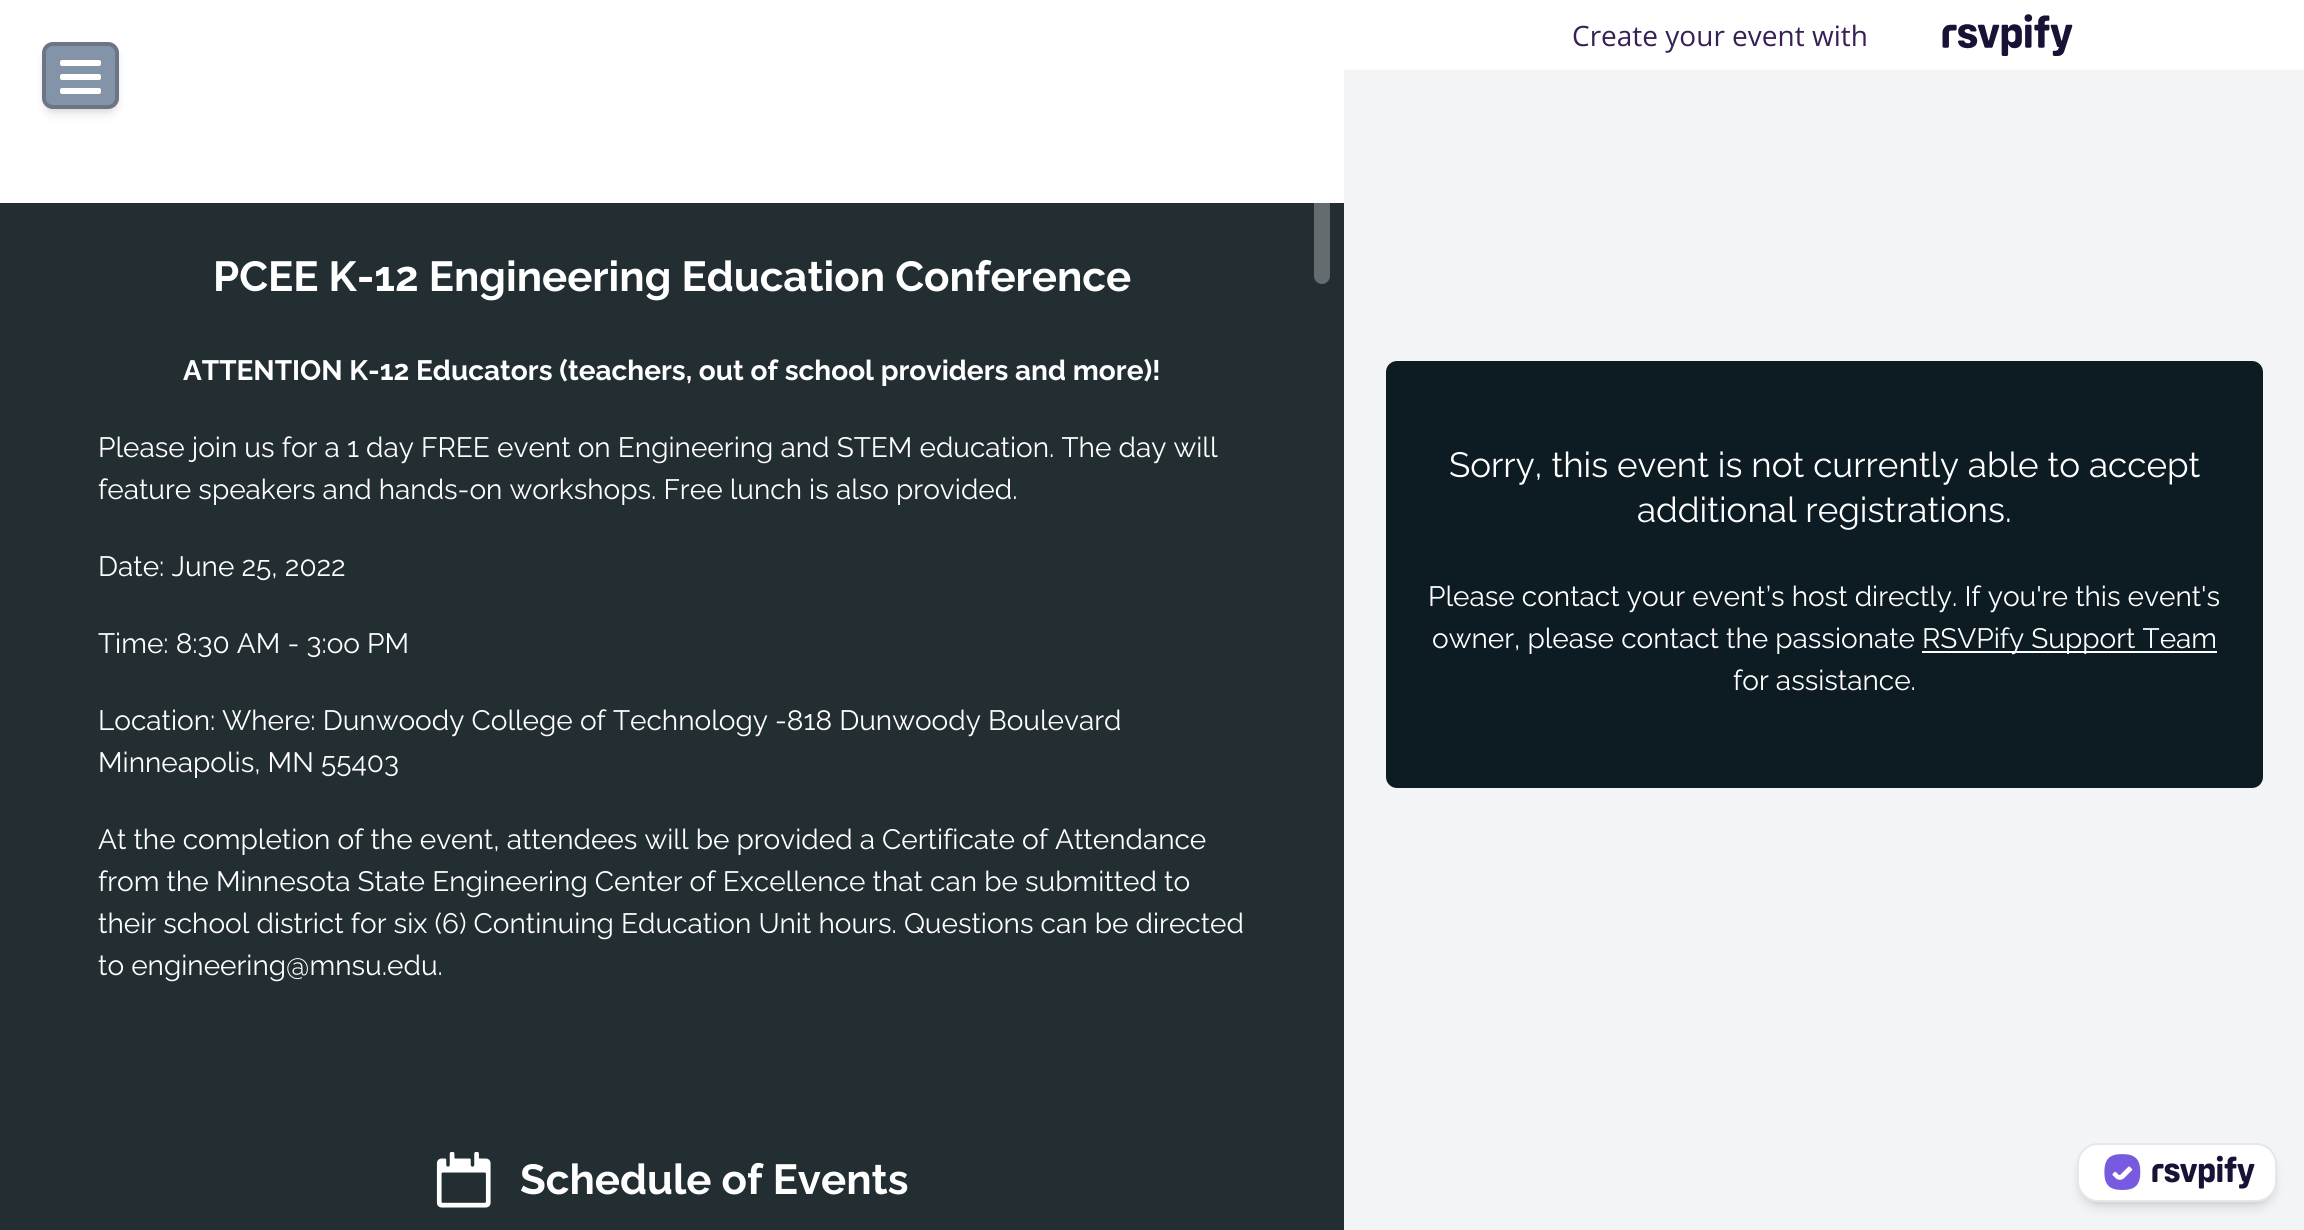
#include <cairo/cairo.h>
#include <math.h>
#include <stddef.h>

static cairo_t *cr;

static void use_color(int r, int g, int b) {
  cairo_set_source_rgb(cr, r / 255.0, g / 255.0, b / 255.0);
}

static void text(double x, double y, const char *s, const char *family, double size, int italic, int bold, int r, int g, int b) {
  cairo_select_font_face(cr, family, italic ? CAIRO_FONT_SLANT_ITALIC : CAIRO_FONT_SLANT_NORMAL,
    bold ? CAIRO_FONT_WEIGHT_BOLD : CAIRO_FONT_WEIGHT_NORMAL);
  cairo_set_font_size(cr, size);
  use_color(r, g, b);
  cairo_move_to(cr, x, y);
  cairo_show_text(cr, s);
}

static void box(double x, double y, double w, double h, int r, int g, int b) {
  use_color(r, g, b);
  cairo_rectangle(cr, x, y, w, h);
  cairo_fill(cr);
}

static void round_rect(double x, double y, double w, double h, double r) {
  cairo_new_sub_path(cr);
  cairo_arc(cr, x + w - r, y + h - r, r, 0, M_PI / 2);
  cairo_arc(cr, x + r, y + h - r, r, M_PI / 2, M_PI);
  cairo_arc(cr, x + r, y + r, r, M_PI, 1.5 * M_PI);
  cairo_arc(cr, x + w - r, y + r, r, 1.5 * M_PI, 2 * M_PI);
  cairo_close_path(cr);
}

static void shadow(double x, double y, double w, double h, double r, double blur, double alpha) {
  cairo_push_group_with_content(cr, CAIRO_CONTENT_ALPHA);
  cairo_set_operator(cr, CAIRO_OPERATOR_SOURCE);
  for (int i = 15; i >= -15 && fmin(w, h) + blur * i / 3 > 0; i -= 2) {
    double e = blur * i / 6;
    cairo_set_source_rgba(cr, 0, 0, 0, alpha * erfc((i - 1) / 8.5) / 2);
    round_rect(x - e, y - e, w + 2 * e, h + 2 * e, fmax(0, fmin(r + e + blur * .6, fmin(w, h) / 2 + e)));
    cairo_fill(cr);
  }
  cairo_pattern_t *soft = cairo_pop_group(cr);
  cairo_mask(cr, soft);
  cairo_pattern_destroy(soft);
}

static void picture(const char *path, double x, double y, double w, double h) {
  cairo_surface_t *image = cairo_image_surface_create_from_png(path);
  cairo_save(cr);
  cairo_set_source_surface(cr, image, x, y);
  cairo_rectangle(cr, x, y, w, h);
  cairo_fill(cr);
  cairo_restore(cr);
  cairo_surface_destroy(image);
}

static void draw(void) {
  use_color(243, 244, 246);
  cairo_paint(cr);
  box(0, 203, 1344, 1027, 35, 46, 51);
  box(0, 0, 1344, 203, 255, 255, 255);
  cairo_set_source_rgba(cr, 1, 1, 1, 0.3);
  round_rect(1314, 9, 16, 275, 8);
  cairo_fill(cr);
  use_color(0, 0, 0);
  shadow(46, 49, 70, 60, 7, 3.5, 0.1);
  shadow(44, 51, 73, 63, 9, 5, 0.1);
  use_color(132, 148, 168);
  round_rect(42, 42, 77, 67, 11);
  cairo_fill(cr);
  round_rect(44, 44, 73, 63, 9);
  cairo_set_source_rgba(cr, 0, 0, 0, 0.2);
  cairo_set_line_width(cr, 4);
  cairo_stroke(cr);
  use_color(255, 255, 255);
  round_rect(60, 60, 41, 6, 2);
  cairo_fill(cr);
  round_rect(60, 74, 41, 6, 2);
  cairo_fill(cr);
  round_rect(60, 88, 41, 6, 2);
  cairo_fill(cr);
  picture("img_01.png", 436, 1152, 55, 56);
  box(1344, 0, 960, 70, 255, 255, 255);
  picture("img_02.png", 1942, 14, 131, 42);
  use_color(13, 27, 35);
  round_rect(1386, 361, 877, 427, 11);
  cairo_fill(cr);
  box(1922, 651, 295, 2, 255, 255, 255);
  use_color(0, 0, 0);
  shadow(2081, 1150, 192, 52, 18, 3.5, 0.1);
  shadow(2079, 1152, 196, 56, 19, 5, 0.1);
  use_color(255, 255, 255);
  round_rect(2078, 1144, 198, 57, 20);
  cairo_fill_preserve(cr);
  use_color(229, 231, 235);
  cairo_set_line_width(cr, 2);
  cairo_stroke(cr);
  picture("img_03.png", 2104, 1154, 151, 36);
  text(213, 291, "PCEE K-12 Engineering Education Conference", "Raleway", 42, 0, 1, 255, 255, 255);
  text(183, 380, "ATTENTION K-12 Educators (teachers, out of school providers and more)!", "Raleway", 28, 0, 1, 255, 255, 255);
  text(98, 457, "Please join us for a 1 day FREE event on Engineering and STEM education. The day will", "Raleway", 28, 0, 0, 255, 255, 255);
  text(98, 499, "feature speakers and hands-on workshops. Free lunch is also provided.", "Raleway", 28, 0, 0, 255, 255, 255);
  text(98, 576, "Date: June 25, 2022", "Raleway", 28, 0, 0, 255, 255, 255);
  text(98, 653, "Time: 8:30 AM - 3:oo PM", "Raleway", 28, 0, 0, 255, 255, 255);
  text(98, 730, "Location:", "Raleway", 28, 0, 0, 255, 255, 255);
  text(222, 730, "Where: Dunwoody College of Technology -818 Dunwoody Boulevard", "Raleway", 28, 0, 0, 255, 255, 255);
  text(98, 772, "Minneapolis, MN 55403", "Raleway", 28, 0, 0, 255, 255, 255);
  text(98, 849, "At the completion of the event, attendees will be provided a Certificate of Attendance", "Raleway", 28, 0, 0, 255, 255, 255);
  text(98, 891, "from the Minnesota State Engineering Center of Excellence that can be submitted to", "Raleway", 28, 0, 0, 255, 255, 255);
  text(98, 933, "their school district for six (6) Continuing Education Unit hours. Questions can be directed", "Raleway", 28, 0, 0, 255, 255, 255);
  text(98, 975, "to engineering@mnsu.edu.", "Raleway", 28, 0, 0, 255, 255, 255);
  text(520, 1194, "Schedule of Events", "Raleway", 42, 0, 1, 255, 255, 255);
  text(1572, 46, "Create your event with", "Open Sans", 28, 0, 0, 55, 32, 86);
  text(1449, 477, "Sorry, this event is not currently able to accept", "Raleway", 35, 0, 0, 255, 255, 255);
  text(1637, 522, "additional registrations.", "Raleway", 35, 0, 0, 255, 255, 255);
  text(1428, 606, "Please contact your event’s host directly. If you're this event's", "Raleway", 28, 0, 0, 255, 255, 255);
  text(1432, 648, "owner, please contact the passionate", "Raleway", 28, 0, 0, 255, 255, 255);
  text(1922, 648, "RSVPify Support Team", "Raleway", 28, 0, 0, 255, 255, 255);
  text(1733, 690, "for assistance.", "Raleway", 28, 0, 0, 255, 255, 255);
}

int main(void) {
  cairo_surface_t *surface = cairo_image_surface_create(CAIRO_FORMAT_RGB24, 2304, 1230);
  cr = cairo_create(surface);
  cairo_font_options_t *options = cairo_font_options_create();
  cairo_font_options_set_hint_metrics(options, CAIRO_HINT_METRICS_OFF);
  cairo_font_options_set_hint_style(options, CAIRO_HINT_STYLE_NONE);
  cairo_set_font_options(cr, options);
  cairo_set_miter_limit(cr, 4);
  draw();
  cairo_surface_write_to_png(surface, "out.png");
  cairo_font_options_destroy(options);
  cairo_destroy(cr);
  cairo_surface_destroy(surface);
  return 0;
}
